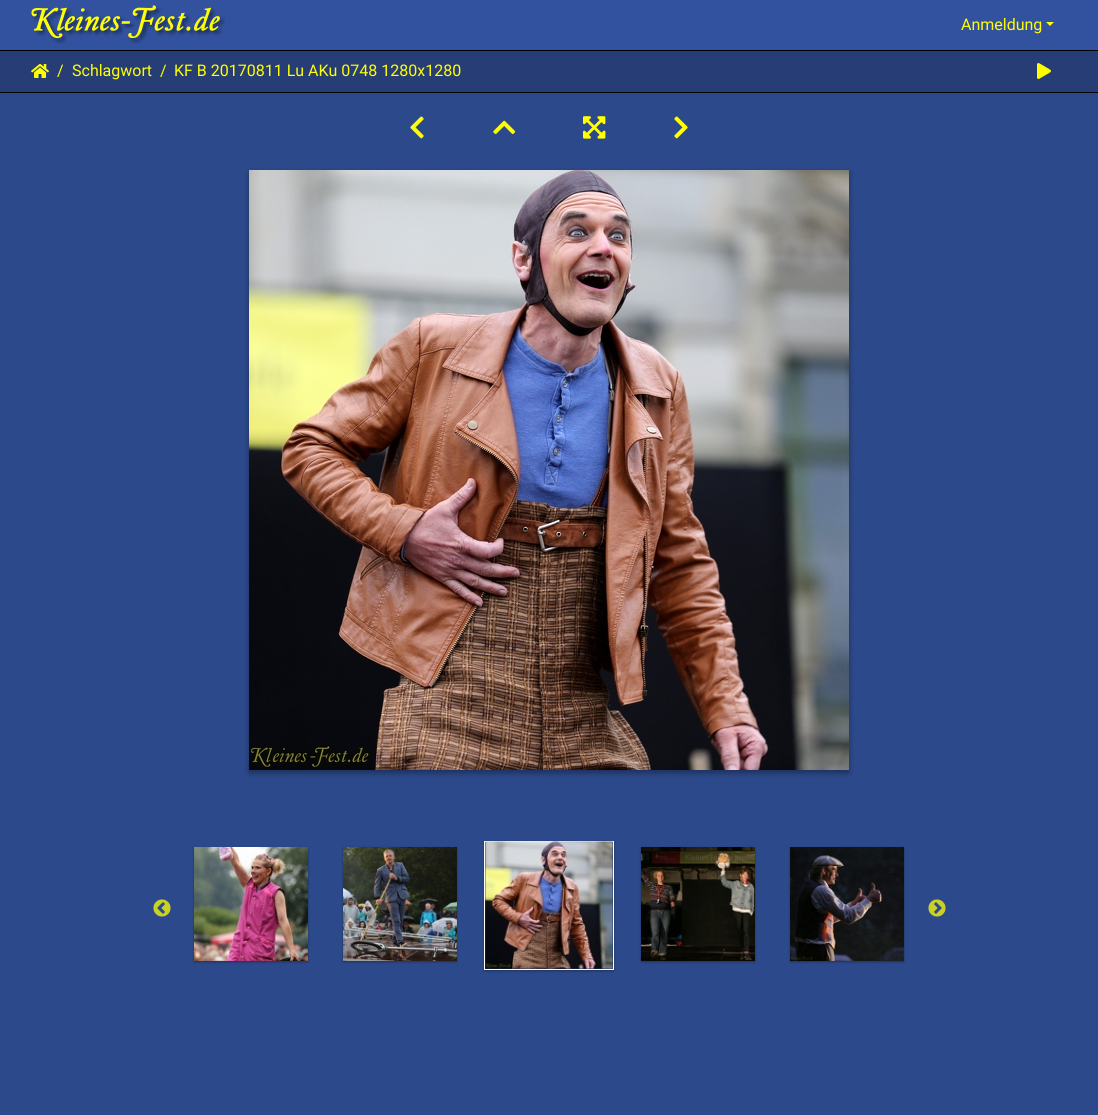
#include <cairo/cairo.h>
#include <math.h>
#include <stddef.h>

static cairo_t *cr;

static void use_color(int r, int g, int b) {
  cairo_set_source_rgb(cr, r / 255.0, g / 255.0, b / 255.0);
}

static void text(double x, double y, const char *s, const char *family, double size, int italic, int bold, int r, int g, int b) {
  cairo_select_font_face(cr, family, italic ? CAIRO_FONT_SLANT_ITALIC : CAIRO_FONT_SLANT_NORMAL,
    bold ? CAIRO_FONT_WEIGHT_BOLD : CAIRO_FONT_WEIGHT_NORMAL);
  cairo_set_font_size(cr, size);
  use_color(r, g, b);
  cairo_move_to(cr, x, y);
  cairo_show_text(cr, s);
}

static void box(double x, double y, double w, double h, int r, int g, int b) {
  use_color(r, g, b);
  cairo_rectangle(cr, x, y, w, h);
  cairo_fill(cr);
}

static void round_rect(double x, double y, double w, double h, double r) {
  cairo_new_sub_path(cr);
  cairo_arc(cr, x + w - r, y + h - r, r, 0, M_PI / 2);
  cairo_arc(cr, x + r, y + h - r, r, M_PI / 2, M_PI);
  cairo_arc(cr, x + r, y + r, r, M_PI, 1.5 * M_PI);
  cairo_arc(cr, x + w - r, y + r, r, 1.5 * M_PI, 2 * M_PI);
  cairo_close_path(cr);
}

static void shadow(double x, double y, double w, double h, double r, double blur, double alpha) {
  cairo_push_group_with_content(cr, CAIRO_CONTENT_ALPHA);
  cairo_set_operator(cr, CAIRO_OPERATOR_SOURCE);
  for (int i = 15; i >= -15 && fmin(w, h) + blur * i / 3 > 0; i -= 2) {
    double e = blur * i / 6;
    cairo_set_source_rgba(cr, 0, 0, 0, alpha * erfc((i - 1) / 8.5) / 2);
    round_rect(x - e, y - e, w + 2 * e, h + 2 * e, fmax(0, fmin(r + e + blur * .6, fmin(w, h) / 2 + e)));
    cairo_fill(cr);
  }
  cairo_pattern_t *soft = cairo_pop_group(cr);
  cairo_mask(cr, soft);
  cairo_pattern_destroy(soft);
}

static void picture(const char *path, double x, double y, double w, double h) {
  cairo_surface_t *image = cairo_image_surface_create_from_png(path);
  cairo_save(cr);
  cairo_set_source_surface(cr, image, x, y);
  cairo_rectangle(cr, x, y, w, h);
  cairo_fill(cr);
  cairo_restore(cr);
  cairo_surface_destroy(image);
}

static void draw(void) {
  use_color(44, 73, 139);
  cairo_paint(cr);
  box(0, 0, 1098, 50, 50, 82, 159);
  picture("img_01.png", 31, 5, 194, 39);
  use_color(255, 255, 0);
  cairo_new_path(cr);
  cairo_move_to(cr, 1046, 22);
  cairo_line_to(cr, 1054, 22);
  cairo_line_to(cr, 1050, 26);
  cairo_close_path(cr);
  cairo_fill(cr);
  box(0, 51, 1098, 41, 38, 61, 117);
  box(0, 50, 1098, 1, 0, 0, 0);
  box(0, 92, 1098, 1, 0, 0, 0);
  picture("img_02.png", 31, 64, 18, 14);
  picture("img_03.png", 1037, 63, 14, 16);
  picture("img_04.png", 410, 116, 14, 23);
  picture("img_05.png", 493, 120, 23, 14);
  picture("img_06.png", 583, 116, 23, 23);
  picture("img_07.png", 674, 116, 14, 23);
  use_color(0, 0, 0);
  shadow(249, 173, 600, 600, 0, 3, 0.23);
  shadow(249, 173, 600, 600, 0, 3, 0.16);
  picture("img_08.png", 249, 170, 600, 600);
  picture("img_09.png", 153, 899, 18, 18);
  shadow(194, 848, 114, 114, 0, 1.5, 0.12);
  shadow(194, 848, 114, 114, 0, 1, 0.24);
  picture("img_10.png", 194, 847, 114, 114);
  shadow(343, 848, 114, 114, 0, 1.5, 0.12);
  shadow(343, 848, 114, 114, 0, 1, 0.24);
  picture("img_11.png", 343, 847, 114, 114);
  shadow(484, 842, 130, 129, 0, 1.5, 0.12);
  shadow(484, 842, 130, 129, 0, 1, 0.24);
  cairo_rectangle(cr, 484.5, 841.5, 129, 128);
  use_color(255, 255, 255);
  cairo_set_line_width(cr, 1);
  cairo_stroke(cr);
  picture("img_12.png", 485, 841, 128, 128);
  use_color(0, 0, 0);
  shadow(641, 848, 114, 114, 0, 1.5, 0.12);
  shadow(641, 848, 114, 114, 0, 1, 0.24);
  picture("img_13.png", 641, 847, 114, 114);
  shadow(790, 848, 114, 114, 0, 1.5, 0.12);
  shadow(790, 848, 114, 114, 0, 1, 0.24);
  picture("img_14.png", 790, 847, 114, 114);
  picture("img_15.png", 928, 899, 18, 18);
  text(961, 30, "Anmeldung", "Roboto", 16, 0, 0, 255, 255, 0);
  text(57, 76, "/", "Roboto", 16, 0, 0, 255, 255, 0);
  text(72, 76, "Schlagwort", "Roboto", 16, 0, 0, 255, 255, 0);
  text(160, 76, "/", "Roboto", 16, 0, 0, 255, 255, 0);
  text(174, 76, "KF B 20170811 Lu AKu 0748 1280x1280", "Roboto", 16, 0, 0, 255, 255, 0);
}

int main(void) {
  cairo_surface_t *surface = cairo_image_surface_create(CAIRO_FORMAT_RGB24, 1098, 1115);
  cr = cairo_create(surface);
  cairo_font_options_t *options = cairo_font_options_create();
  cairo_font_options_set_hint_metrics(options, CAIRO_HINT_METRICS_OFF);
  cairo_font_options_set_hint_style(options, CAIRO_HINT_STYLE_NONE);
  cairo_set_font_options(cr, options);
  cairo_set_miter_limit(cr, 4);
  draw();
  cairo_surface_write_to_png(surface, "out.png");
  cairo_font_options_destroy(options);
  cairo_destroy(cr);
  cairo_surface_destroy(surface);
  return 0;
}
